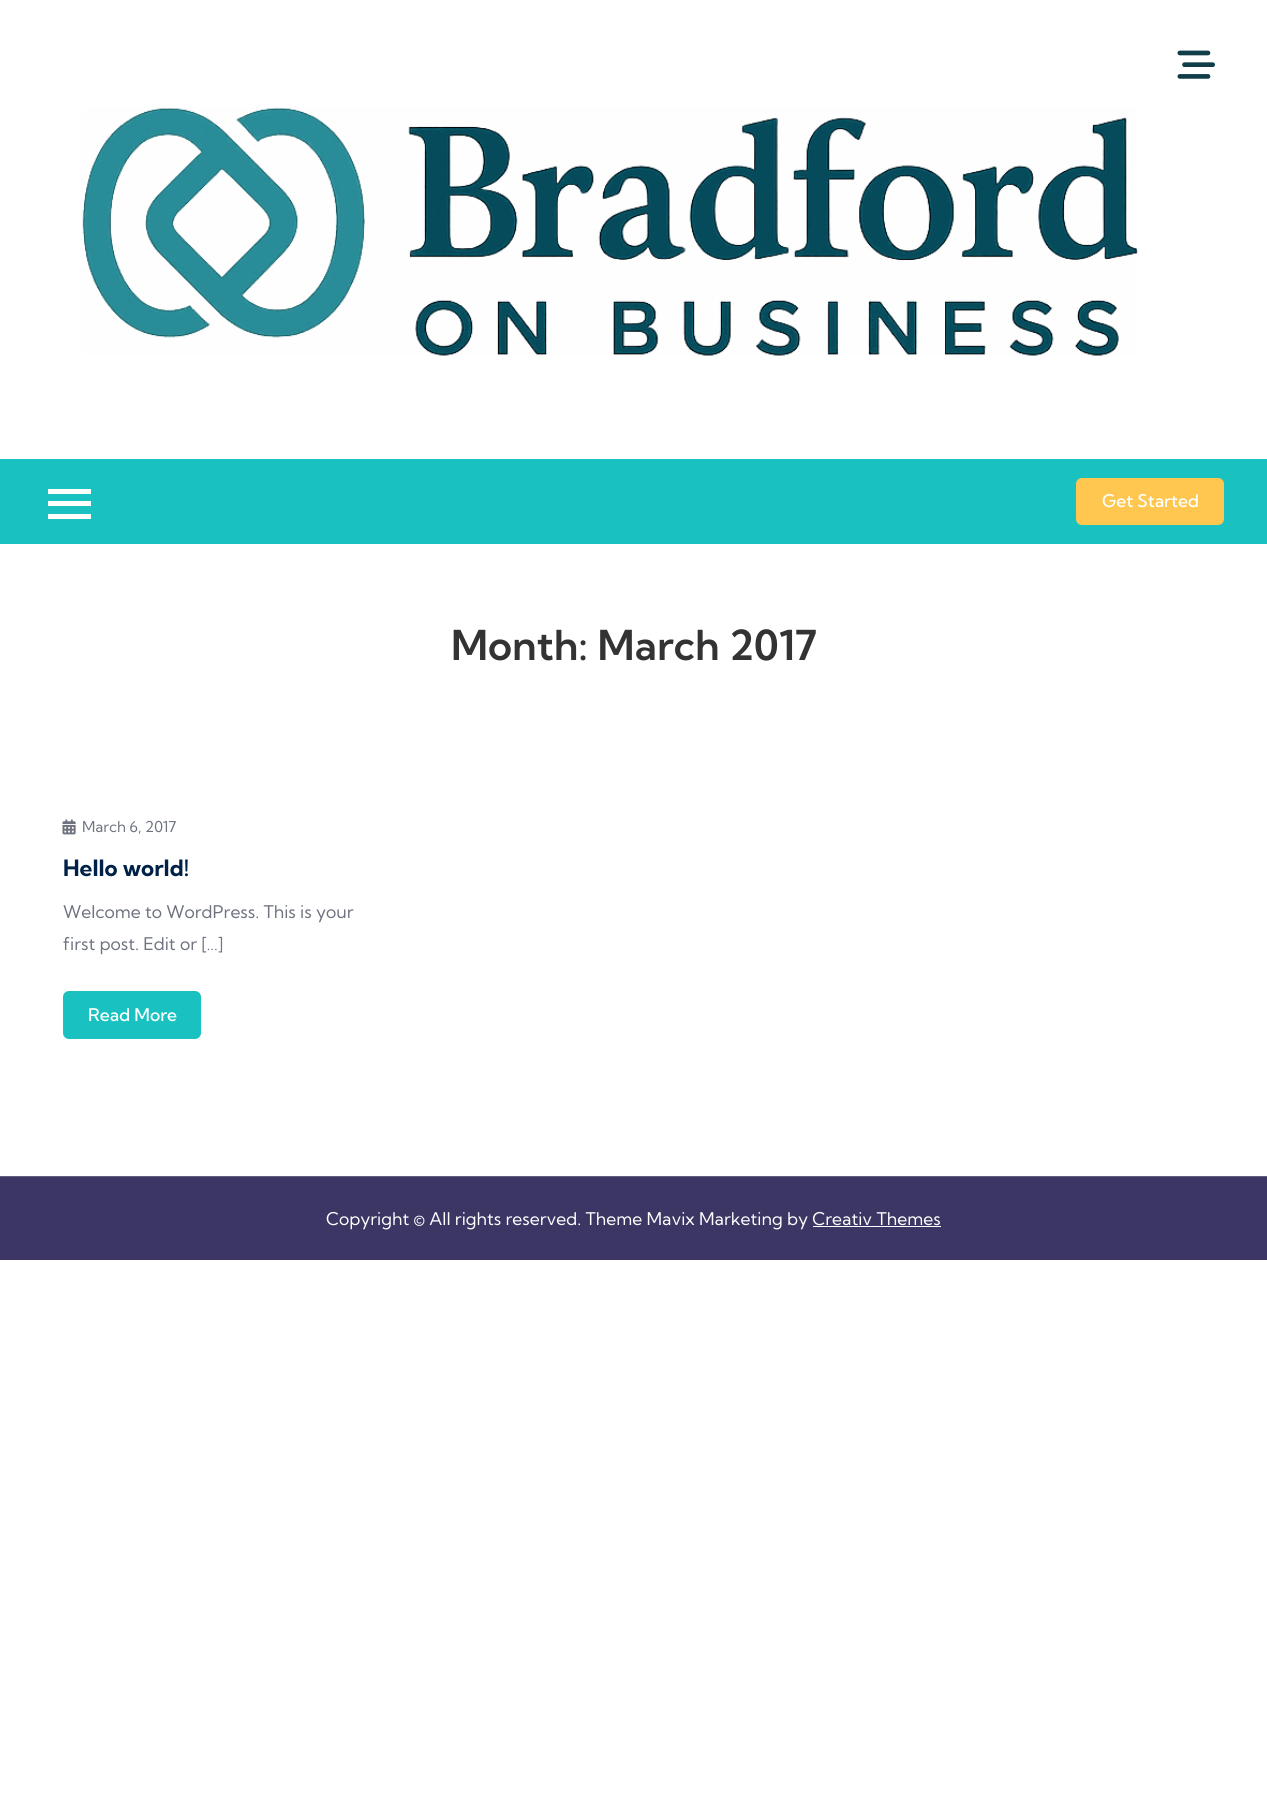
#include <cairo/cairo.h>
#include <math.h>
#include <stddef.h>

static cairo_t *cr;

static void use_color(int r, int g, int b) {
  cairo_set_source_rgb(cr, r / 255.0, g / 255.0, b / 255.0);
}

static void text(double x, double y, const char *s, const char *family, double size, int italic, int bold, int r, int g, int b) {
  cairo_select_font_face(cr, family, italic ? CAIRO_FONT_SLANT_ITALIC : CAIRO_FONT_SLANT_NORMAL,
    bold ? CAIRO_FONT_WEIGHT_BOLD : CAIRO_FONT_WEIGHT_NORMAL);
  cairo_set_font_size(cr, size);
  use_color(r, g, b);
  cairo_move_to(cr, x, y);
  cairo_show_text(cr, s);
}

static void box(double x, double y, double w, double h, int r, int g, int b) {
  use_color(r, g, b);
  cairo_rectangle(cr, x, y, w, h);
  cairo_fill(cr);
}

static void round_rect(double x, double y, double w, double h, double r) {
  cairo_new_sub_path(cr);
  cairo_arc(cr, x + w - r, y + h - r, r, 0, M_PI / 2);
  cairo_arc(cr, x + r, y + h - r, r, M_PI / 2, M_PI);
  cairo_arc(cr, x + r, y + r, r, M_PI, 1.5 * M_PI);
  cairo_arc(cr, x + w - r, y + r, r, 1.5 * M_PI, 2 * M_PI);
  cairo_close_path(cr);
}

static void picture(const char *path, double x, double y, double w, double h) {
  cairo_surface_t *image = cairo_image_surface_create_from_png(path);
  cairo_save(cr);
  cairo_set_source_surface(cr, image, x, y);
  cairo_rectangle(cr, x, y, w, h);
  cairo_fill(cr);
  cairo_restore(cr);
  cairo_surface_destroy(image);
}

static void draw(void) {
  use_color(255, 255, 255);
  cairo_paint(cr);
  picture("img_01.png", 1177, 50, 38, 29);
  picture("img_02.png", 82, 107, 1056, 249);
  box(0, 459, 1267, 85, 25, 194, 193);
  box(48, 501, 43, 5, 255, 255, 255);
  box(48, 489, 43, 5, 255, 255, 255);
  box(48, 514, 43, 5, 255, 255, 255);
  use_color(255, 199, 80);
  round_rect(1077.5, 479.5, 145, 44, 4.5);
  cairo_fill_preserve(cr);
  cairo_set_line_width(cr, 3);
  cairo_stroke(cr);
  picture("img_03.png", 62, 819, 14, 16);
  use_color(25, 194, 193);
  round_rect(64.5, 992.5, 135, 45, 4.5);
  cairo_fill_preserve(cr);
  cairo_stroke(cr);
  box(0, 1177, 1267, 83, 59, 54, 99);
  box(0, 1176, 1267, 1, 98, 94, 130);
  box(813, 1226, 128, 1, 255, 255, 255);
  text(1102, 507, "Get Started", "Kumbh Sans Medium", 17.5, 0, 0, 255, 255, 255);
  text(451, 660, "Month: March 2017", "Kumbh Sans SemiBold", 41.25, 0, 0, 51, 51, 51);
  text(82, 832, "March 6, 2017", "Kumbh Sans", 15, 0, 0, 111, 115, 128);
  text(63, 876, "Hello world!", "Kumbh Sans", 22.5, 0, 1, 0, 33, 71);
  text(63, 918, "Welcome to WordPress. This is your", "Kumbh Sans", 17.5, 0, 0, 111, 115, 128);
  text(63, 950, "first post. Edit or […]", "Kumbh Sans", 17.5, 0, 0, 111, 115, 128);
  text(88, 1021, "Read More", "Kumbh Sans Medium", 17.5, 0, 0, 255, 255, 255);
  text(326, 1225, "Copyright © All rights reserved. Theme Mavix Marketing by Creativ Themes", "Kumbh Sans", 17.5, 0, 0, 255, 255, 255);
}

int main(void) {
  cairo_surface_t *surface = cairo_image_surface_create(CAIRO_FORMAT_RGB24, 1267, 1793);
  cr = cairo_create(surface);
  cairo_font_options_t *options = cairo_font_options_create();
  cairo_font_options_set_hint_metrics(options, CAIRO_HINT_METRICS_OFF);
  cairo_font_options_set_hint_style(options, CAIRO_HINT_STYLE_NONE);
  cairo_set_font_options(cr, options);
  cairo_set_miter_limit(cr, 4);
  draw();
  cairo_surface_write_to_png(surface, "out.png");
  cairo_font_options_destroy(options);
  cairo_destroy(cr);
  cairo_surface_destroy(surface);
  return 0;
}
